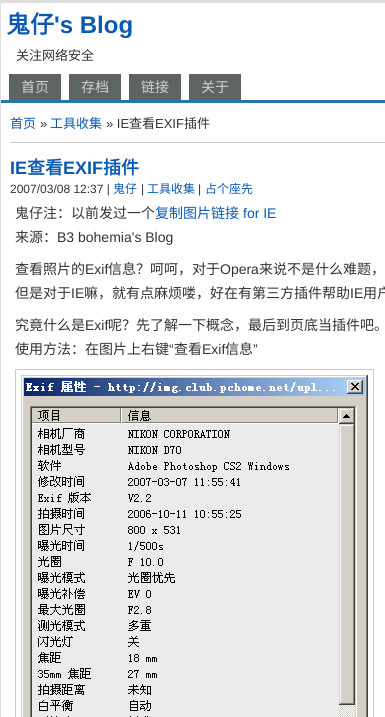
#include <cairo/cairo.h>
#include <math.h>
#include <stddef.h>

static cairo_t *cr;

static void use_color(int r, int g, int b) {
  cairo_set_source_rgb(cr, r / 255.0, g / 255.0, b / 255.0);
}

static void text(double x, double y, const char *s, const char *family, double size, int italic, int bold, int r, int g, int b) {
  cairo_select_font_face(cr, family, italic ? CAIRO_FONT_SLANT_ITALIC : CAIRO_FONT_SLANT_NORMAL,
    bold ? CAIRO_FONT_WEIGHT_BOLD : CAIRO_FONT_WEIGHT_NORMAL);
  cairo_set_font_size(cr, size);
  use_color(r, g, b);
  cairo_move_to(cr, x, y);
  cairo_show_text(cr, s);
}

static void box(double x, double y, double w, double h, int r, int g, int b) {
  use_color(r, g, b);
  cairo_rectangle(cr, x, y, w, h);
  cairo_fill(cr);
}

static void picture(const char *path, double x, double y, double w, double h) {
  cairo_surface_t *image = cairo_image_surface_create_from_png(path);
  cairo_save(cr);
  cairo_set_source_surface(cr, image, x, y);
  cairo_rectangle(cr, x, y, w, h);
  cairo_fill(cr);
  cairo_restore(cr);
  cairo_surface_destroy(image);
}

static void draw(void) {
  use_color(255, 255, 255);
  cairo_paint(cr);
  box(0, 0, 385, 3, 221, 221, 221);
  box(0, 0, 1, 717, 221, 221, 221);
  box(1, 100, 384, 3, 39, 118, 165);
  box(9, 74, 52, 26, 94, 100, 96);
  box(69, 74, 52, 26, 94, 100, 96);
  box(129, 74, 52, 26, 94, 100, 96);
  box(189, 74, 52, 26, 94, 100, 96);
  box(10, 142, 375, 1, 204, 204, 204);
  cairo_rectangle(cr, 15.5, 369.5, 358, 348);
  cairo_set_line_width(cr, 1);
  cairo_stroke(cr);
  picture("img_01.png", 21, 375, 347, 342);
  text(6, 33, "鬼仔", "Noto Sans CJK SC", 24, 0, 1, 11, 89, 178);
  text(54, 33, "'s Blog", "Liberation Sans", 24, 0, 1, 11, 89, 178);
  text(16, 60, "关注网络安全", "Noto Sans CJK SC", 13, 0, 0, 51, 51, 51);
  text(21, 92, "首页", "Noto Sans CJK SC", 14, 0, 0, 209, 209, 209);
  text(81, 92, "存档", "Noto Sans CJK SC", 14, 0, 0, 209, 209, 209);
  text(141, 92, "链接", "Noto Sans CJK SC", 14, 0, 0, 209, 209, 209);
  text(201, 92, "关于", "Noto Sans CJK SC", 14, 0, 0, 209, 209, 209);
  text(10, 128, "首页", "Noto Sans CJK SC", 13, 0, 0, 11, 89, 178);
  text(40, 128, "»", "Liberation Sans", 13, 0, 0, 51, 51, 51);
  text(50, 128, "工具收集", "Noto Sans CJK SC", 13, 0, 0, 11, 89, 178);
  text(106, 128, "» IE", "Liberation Sans", 13, 0, 0, 51, 51, 51);
  text(129, 128, "查看", "Noto Sans CJK SC", 13, 0, 0, 51, 51, 51);
  text(155, 128, "EXIF", "Liberation Sans", 13, 0, 0, 51, 51, 51);
  text(184, 128, "插件", "Noto Sans CJK SC", 13, 0, 0, 51, 51, 51);
  text(10, 174, "IE", "Liberation Sans", 18, 0, 1, 11, 89, 178);
  text(27, 174, "查看", "Noto Sans CJK SC", 18, 0, 1, 11, 89, 178);
  text(63, 174, "EXIF", "Liberation Sans", 18, 0, 1, 11, 89, 178);
  text(103, 174, "插件", "Noto Sans CJK SC", 18, 0, 1, 11, 89, 178);
  text(10, 193, "2007/03/08 12:37 |", "Liberation Sans", 12, 0, 0, 51, 51, 51);
  text(113, 193, "鬼仔", "Noto Sans CJK SC", 12, 0, 0, 11, 89, 178);
  text(141, 193, "|", "Liberation Sans", 12, 0, 0, 51, 51, 51);
  text(147, 193, "工具收集", "Noto Sans CJK SC", 12, 0, 0, 11, 89, 178);
  text(198, 193, "|", "Liberation Sans", 12, 0, 0, 51, 51, 51);
  text(205, 193, "占个座先", "Noto Sans CJK SC", 12, 0, 0, 11, 89, 178);
  text(15, 218, "鬼仔注：以前发过一个", "Noto Sans CJK SC", 14, 0, 0, 51, 51, 51);
  text(155, 218, "复制图片链接", "Noto Sans CJK SC", 14, 0, 0, 11, 89, 178);
  text(243, 218, "for IE", "Liberation Sans", 14, 0, 0, 11, 89, 178);
  text(15, 242, "来源：", "Noto Sans CJK SC", 14, 0, 0, 51, 51, 51);
  text(57, 242, "B3 bohemia's Blog", "Liberation Sans", 14, 0, 0, 51, 51, 51);
  text(15, 274, "查看照片的", "Noto Sans CJK SC", 14, 0, 0, 51, 51, 51);
  text(85, 274, "Exif", "Liberation Sans", 14, 0, 0, 51, 51, 51);
  text(108, 274, "信息？呵呵，对于", "Noto Sans CJK SC", 14, 0, 0, 51, 51, 51);
  text(220, 274, "Opera", "Liberation Sans", 14, 0, 0, 51, 51, 51);
  text(259, 274, "来说不是什么难题，", "Noto Sans CJK SC", 14, 0, 0, 51, 51, 51);
  text(15, 298, "但是对于", "Noto Sans CJK SC", 14, 0, 0, 51, 51, 51);
  text(71, 298, "IE", "Liberation Sans", 14, 0, 0, 51, 51, 51);
  text(84, 298, "嘛，就有点麻烦喽，好在有第三方插件帮助", "Noto Sans CJK SC", 14, 0, 0, 51, 51, 51);
  text(350, 298, "IE", "Liberation Sans", 14, 0, 0, 51, 51, 51);
  text(363, 298, "用户", "Noto Sans CJK SC", 14, 0, 0, 51, 51, 51);
  text(15, 330, "究竟什么是", "Noto Sans CJK SC", 14, 0, 0, 51, 51, 51);
  text(85, 330, "Exif", "Liberation Sans", 14, 0, 0, 51, 51, 51);
  text(108, 330, "呢？先了解一下概念，最后到页底当插件吧。", "Noto Sans CJK SC", 14, 0, 0, 51, 51, 51);
  text(15, 354, "使用方法：在图片上右键", "Noto Sans CJK SC", 14, 0, 0, 51, 51, 51);
  text(169, 354, "“", "Liberation Sans", 14, 0, 0, 51, 51, 51);
  text(174, 354, "查看", "Noto Sans CJK SC", 14, 0, 0, 51, 51, 51);
  text(202, 354, "Exif", "Liberation Sans", 14, 0, 0, 51, 51, 51);
  text(225, 354, "信息", "Noto Sans CJK SC", 14, 0, 0, 51, 51, 51);
  text(253, 354, "”", "Liberation Sans", 14, 0, 0, 51, 51, 51);
}

int main(void) {
  cairo_surface_t *surface = cairo_image_surface_create(CAIRO_FORMAT_RGB24, 385, 717);
  cr = cairo_create(surface);
  cairo_font_options_t *options = cairo_font_options_create();
  cairo_font_options_set_hint_metrics(options, CAIRO_HINT_METRICS_OFF);
  cairo_font_options_set_hint_style(options, CAIRO_HINT_STYLE_NONE);
  cairo_set_font_options(cr, options);
  cairo_set_miter_limit(cr, 4);
  draw();
  cairo_surface_write_to_png(surface, "out.png");
  cairo_font_options_destroy(options);
  cairo_destroy(cr);
  cairo_surface_destroy(surface);
  return 0;
}
